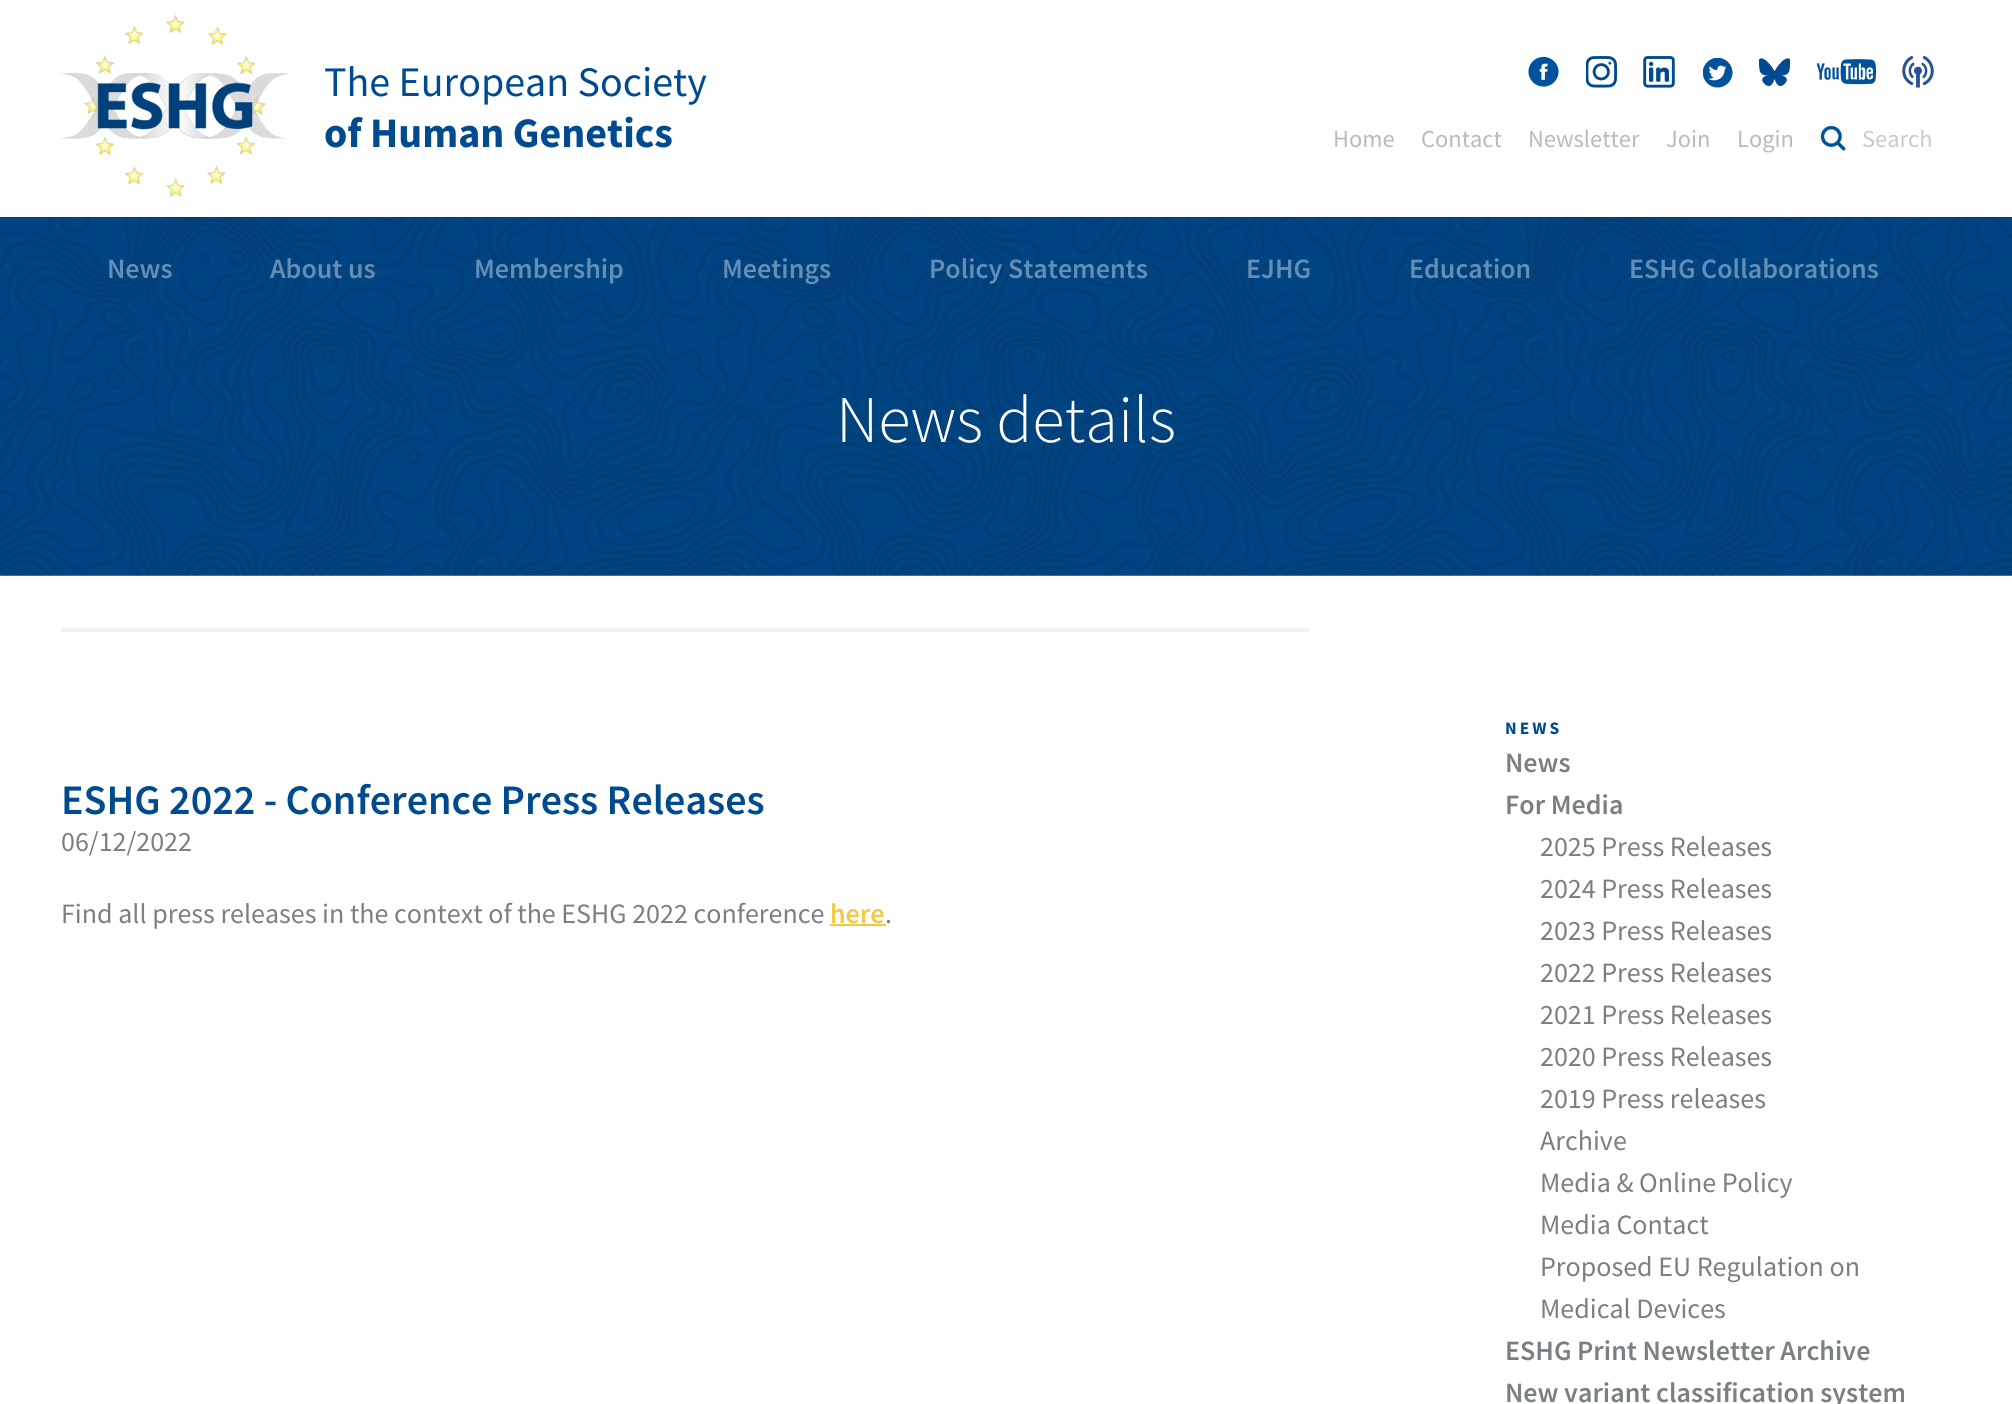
#include <cairo/cairo.h>
#include <math.h>
#include <stddef.h>

static cairo_t *cr;

static void use_color(int r, int g, int b) {
  cairo_set_source_rgb(cr, r / 255.0, g / 255.0, b / 255.0);
}

static void text(double x, double y, const char *s, const char *family, double size, int italic, int bold, int r, int g, int b) {
  cairo_select_font_face(cr, family, italic ? CAIRO_FONT_SLANT_ITALIC : CAIRO_FONT_SLANT_NORMAL,
    bold ? CAIRO_FONT_WEIGHT_BOLD : CAIRO_FONT_WEIGHT_NORMAL);
  cairo_set_font_size(cr, size);
  use_color(r, g, b);
  cairo_move_to(cr, x, y);
  cairo_show_text(cr, s);
}

static void spaced_text(double x, double y, const char *s, double letter, double word) {
  cairo_move_to(cr, x, y);
  while (*s) {
    char ch[5] = {0};
    int n = 0;
    do ch[n++] = *s++; while ((*s & 0xC0) == 0x80);
    cairo_show_text(cr, ch);
    cairo_rel_move_to(cr, letter + word * (*ch == ' '), 0);
  }
}

static void box(double x, double y, double w, double h, int r, int g, int b) {
  use_color(r, g, b);
  cairo_rectangle(cr, x, y, w, h);
  cairo_fill(cr);
}

static void picture(const char *path, double x, double y, double w, double h) {
  cairo_surface_t *image = cairo_image_surface_create_from_png(path);
  cairo_save(cr);
  cairo_set_source_surface(cr, image, x, y);
  cairo_rectangle(cr, x, y, w, h);
  cairo_fill(cr);
  cairo_restore(cr);
  cairo_surface_destroy(image);
}

static void draw(void) {
  use_color(255, 255, 255);
  cairo_paint(cr);
  picture("img_01.png", 61, 15, 228, 182);
  picture("img_02.png", 1528, 56, 31, 31);
  picture("img_03.png", 1586, 56, 31, 32);
  picture("img_04.png", 1643, 56, 32, 32);
  picture("img_05.png", 1703, 58, 30, 30);
  picture("img_06.png", 1759, 58, 31, 28);
  picture("img_07.png", 1817, 59, 59, 26);
  picture("img_08.png", 1902, 56, 32, 32);
  picture("img_09.png", 1820, 126, 26, 25);
  picture("img_10.png", 0, 217, 2012, 359);
  box(61, 628, 1248, 4, 241, 241, 241);
  box(830, 924, 56, 2, 243, 200, 69);
  text(324, 96, "The European Society", "Source Sans Pro", 42, 0, 0, 0, 74, 143);
  text(324, 147, "of Human Genetics", "Source Sans Pro", 42, 0, 1, 0, 74, 143);
  text(1333, 147, "Home", "Source Sans Pro", 24.5, 0, 0, 180, 187, 194);
  text(1421, 147, "Contact", "Source Sans Pro", 24.5, 0, 0, 180, 187, 194);
  text(1528, 147, "Newsletter", "Source Sans Pro", 24.5, 0, 0, 180, 187, 194);
  text(1666, 147, "Join", "Source Sans Pro", 24.5, 0, 0, 180, 187, 194);
  text(1737, 147, "Login", "Source Sans Pro", 24.5, 0, 0, 180, 187, 194);
  text(1862, 147, "Search", "Source Sans Pro", 24.5, 0, 0, 202, 202, 202);
  text(107, 278, "News", "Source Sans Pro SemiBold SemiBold", 28, 0, 0, 99, 143, 182);
  text(270, 278, "About us", "Source Sans Pro SemiBold SemiBold", 28, 0, 0, 99, 143, 182);
  text(474, 278, "Membership", "Source Sans Pro SemiBold SemiBold", 28, 0, 0, 99, 143, 182);
  text(722, 278, "Meetings", "Source Sans Pro SemiBold SemiBold", 28, 0, 0, 99, 143, 182);
  text(929, 278, "Policy Statements", "Source Sans Pro SemiBold SemiBold", 28, 0, 0, 99, 143, 182);
  text(1246, 278, "EJHG", "Source Sans Pro SemiBold SemiBold", 28, 0, 0, 99, 143, 182);
  text(1409, 278, "Education", "Source Sans Pro SemiBold SemiBold", 28, 0, 0, 99, 143, 182);
  text(1629, 278, "ESHG Collaborations", "Source Sans Pro SemiBold SemiBold", 28, 0, 0, 99, 143, 182);
  text(836, 442, "News details", "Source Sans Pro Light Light", 66.5, 0, 0, 255, 255, 255);
  text(61, 814, "ESHG 2022 - Conference Press Releases", "Source Sans Pro SemiBold SemiBold", 42, 0, 0, 0, 74, 143);
  text(61, 851, "06/12/2022", "Source Sans Pro", 28, 0, 0, 122, 127, 131);
  text(61, 923, "Find all press releases in the context of the ESHG 2022 conference", "Source Sans Pro", 28, 0, 0, 122, 127, 131);
  text(830, 923, "here", "Source Sans Pro SemiBold SemiBold", 28, 0, 0, 243, 200, 69);
  text(885, 923, ".", "Source Sans Pro", 28, 0, 0, 122, 127, 131);
  cairo_select_font_face(cr, "Source Sans Pro", CAIRO_FONT_SLANT_NORMAL, CAIRO_FONT_WEIGHT_BOLD);
  cairo_set_font_size(cr, 17.5);
  use_color(0, 74, 143);
  spaced_text(1505, 734, "NEWS", 3, 0);
  text(1505, 772, "News", "Source Sans Pro SemiBold SemiBold", 28, 0, 0, 122, 127, 131);
  text(1505, 814, "For Media", "Source Sans Pro SemiBold SemiBold", 28, 0, 0, 122, 127, 131);
  text(1540, 856, "2025 Press Releases", "Source Sans Pro", 28, 0, 0, 122, 127, 131);
  text(1540, 898, "2024 Press Releases", "Source Sans Pro", 28, 0, 0, 122, 127, 131);
  text(1540, 940, "2023 Press Releases", "Source Sans Pro", 28, 0, 0, 122, 127, 131);
  text(1540, 982, "2022 Press Releases", "Source Sans Pro", 28, 0, 0, 122, 127, 131);
  text(1540, 1024, "2021 Press Releases", "Source Sans Pro", 28, 0, 0, 122, 127, 131);
  text(1540, 1066, "2020 Press Releases", "Source Sans Pro", 28, 0, 0, 122, 127, 131);
  text(1540, 1108, "2019 Press releases", "Source Sans Pro", 28, 0, 0, 122, 127, 131);
  text(1540, 1150, "Archive", "Source Sans Pro", 28, 0, 0, 122, 127, 131);
  text(1540, 1192, "Media & Online Policy", "Source Sans Pro", 28, 0, 0, 122, 127, 131);
  text(1540, 1234, "Media Contact", "Source Sans Pro", 28, 0, 0, 122, 127, 131);
  text(1540, 1276, "Proposed EU Regulation on", "Source Sans Pro", 28, 0, 0, 122, 127, 131);
  text(1540, 1318, "Medical Devices", "Source Sans Pro", 28, 0, 0, 122, 127, 131);
  text(1505, 1360, "ESHG Print Newsletter Archive", "Source Sans Pro SemiBold SemiBold", 28, 0, 0, 122, 127, 131);
  text(1505, 1402, "New variant classification system", "Source Sans Pro SemiBold SemiBold", 28, 0, 0, 122, 127, 131);
}

int main(void) {
  cairo_surface_t *surface = cairo_image_surface_create(CAIRO_FORMAT_RGB24, 2012, 1404);
  cr = cairo_create(surface);
  cairo_font_options_t *options = cairo_font_options_create();
  cairo_font_options_set_hint_metrics(options, CAIRO_HINT_METRICS_OFF);
  cairo_font_options_set_hint_style(options, CAIRO_HINT_STYLE_NONE);
  cairo_set_font_options(cr, options);
  cairo_set_miter_limit(cr, 4);
  draw();
  cairo_surface_write_to_png(surface, "out.png");
  cairo_font_options_destroy(options);
  cairo_destroy(cr);
  cairo_surface_destroy(surface);
  return 0;
}
